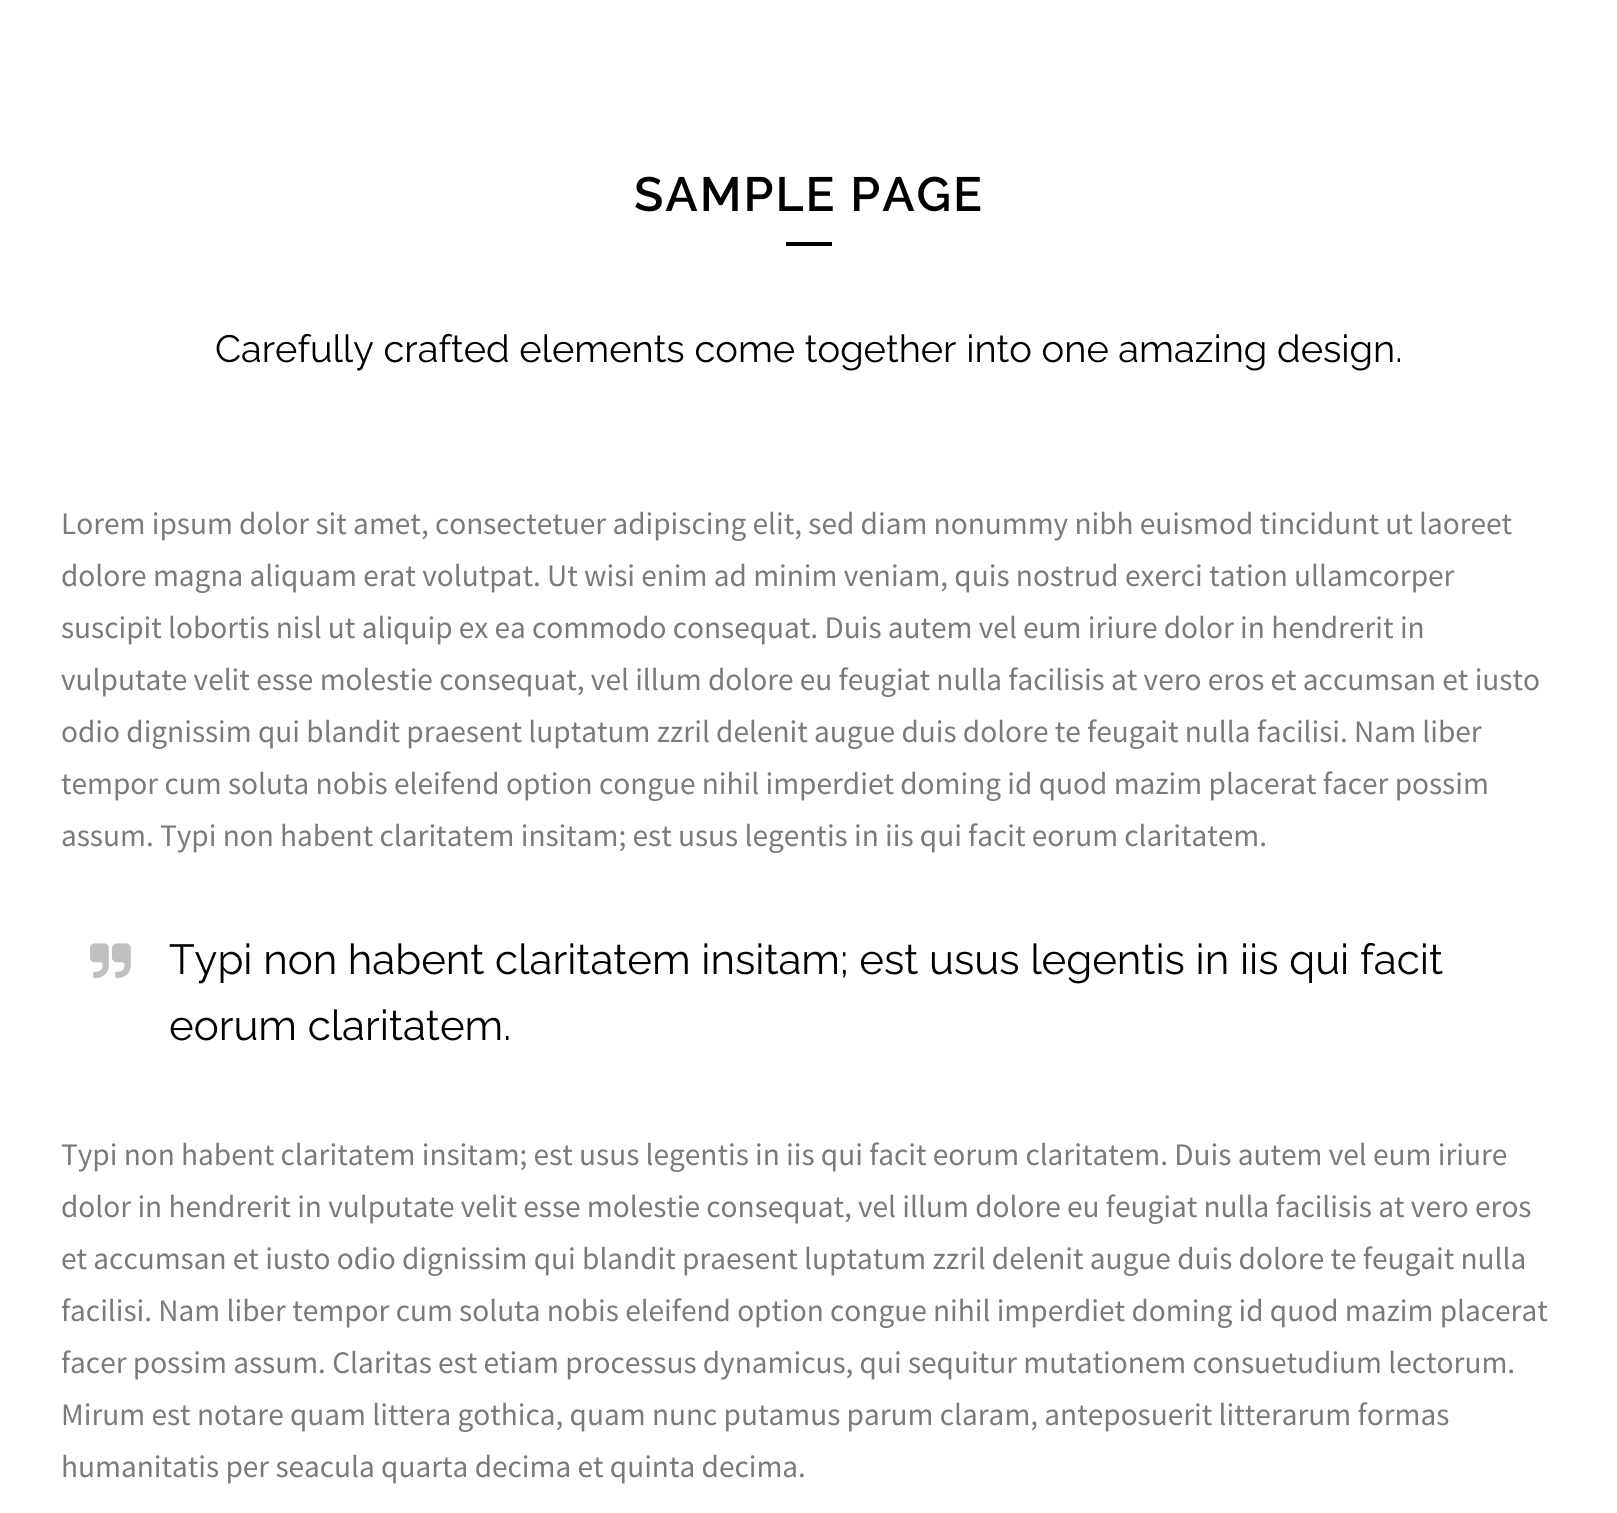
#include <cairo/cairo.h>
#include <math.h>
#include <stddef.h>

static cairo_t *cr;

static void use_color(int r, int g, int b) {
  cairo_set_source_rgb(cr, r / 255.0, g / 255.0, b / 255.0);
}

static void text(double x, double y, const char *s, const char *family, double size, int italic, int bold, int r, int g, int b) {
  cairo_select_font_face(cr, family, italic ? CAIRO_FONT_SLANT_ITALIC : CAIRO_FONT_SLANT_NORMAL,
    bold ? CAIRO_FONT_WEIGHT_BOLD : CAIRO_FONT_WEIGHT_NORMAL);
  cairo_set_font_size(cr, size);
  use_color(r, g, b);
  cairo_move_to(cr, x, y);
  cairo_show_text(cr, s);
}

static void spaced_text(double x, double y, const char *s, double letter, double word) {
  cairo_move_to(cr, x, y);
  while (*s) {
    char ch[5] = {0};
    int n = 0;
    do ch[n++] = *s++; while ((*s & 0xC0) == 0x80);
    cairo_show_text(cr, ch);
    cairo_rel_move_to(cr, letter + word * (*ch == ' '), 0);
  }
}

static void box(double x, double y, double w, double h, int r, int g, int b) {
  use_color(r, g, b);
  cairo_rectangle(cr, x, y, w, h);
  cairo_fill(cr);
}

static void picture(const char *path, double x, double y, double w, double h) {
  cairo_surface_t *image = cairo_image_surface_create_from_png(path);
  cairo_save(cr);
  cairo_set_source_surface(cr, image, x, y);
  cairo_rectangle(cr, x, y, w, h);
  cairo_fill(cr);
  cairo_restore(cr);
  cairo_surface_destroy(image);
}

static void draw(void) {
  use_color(255, 255, 255);
  cairo_paint(cr);
  box(786, 242, 46, 4, 0, 0, 0);
  picture("img_01.png", 90, 943, 41, 35);
  cairo_select_font_face(cr, "Raleway SemiBold", CAIRO_FONT_SLANT_NORMAL, CAIRO_FONT_WEIGHT_NORMAL);
  cairo_set_font_size(cr, 48);
  spaced_text(634, 211, "SAMPLE PAGE", 2, 0);
  text(215, 362, "Carefully crafted elements come together into one amazing design.", "Raleway", 38, 0, 0, 0, 0, 0);
  text(61, 534, "Lorem ipsum dolor sit amet, consectetuer adipiscing elit, sed diam nonummy nibh euismod tincidunt ut laoreet", "Noto Sans SC", 28, 0, 0, 122, 122, 122);
  text(61, 586, "dolore magna aliquam erat volutpat. Ut wisi enim ad minim veniam, quis nostrud exerci tation ullamcorper", "Noto Sans SC", 28, 0, 0, 122, 122, 122);
  text(61, 638, "suscipit lobortis nisl ut aliquip ex ea commodo consequat. Duis autem vel eum iriure dolor in hendrerit in", "Noto Sans SC", 28, 0, 0, 122, 122, 122);
  text(61, 690, "vulputate velit esse molestie consequat, vel illum dolore eu feugiat nulla facilisis at vero eros et accumsan et iusto", "Noto Sans SC", 28, 0, 0, 122, 122, 122);
  text(61, 742, "odio dignissim qui blandit praesent luptatum zzril delenit augue duis dolore te feugait nulla facilisi. Nam liber", "Noto Sans SC", 28, 0, 0, 122, 122, 122);
  text(61, 794, "tempor cum soluta nobis eleifend option congue nihil imperdiet doming id quod mazim placerat facer possim", "Noto Sans SC", 28, 0, 0, 122, 122, 122);
  text(61, 846, "assum. Typi non habent claritatem insitam; est usus legentis in iis qui facit eorum claritatem.", "Noto Sans SC", 28, 0, 0, 122, 122, 122);
  text(169, 974, "Typi non habent claritatem insitam; est usus legentis in iis qui facit", "Raleway", 42, 0, 0, 0, 0, 0);
  text(169, 1040, "eorum claritatem.", "Raleway", 42, 0, 0, 0, 0, 0);
  text(61, 1165, "Typi non habent claritatem insitam; est usus legentis in iis qui facit eorum claritatem. Duis autem vel eum iriure", "Noto Sans SC", 28, 0, 0, 122, 122, 122);
  text(61, 1217, "dolor in hendrerit in vulputate velit esse molestie consequat, vel illum dolore eu feugiat nulla facilisis at vero eros", "Noto Sans SC", 28, 0, 0, 122, 122, 122);
  text(61, 1269, "et accumsan et iusto odio dignissim qui blandit praesent luptatum zzril delenit augue duis dolore te feugait nulla", "Noto Sans SC", 28, 0, 0, 122, 122, 122);
  text(61, 1321, "facilisi. Nam liber tempor cum soluta nobis eleifend option congue nihil imperdiet doming id quod mazim placerat", "Noto Sans SC", 28, 0, 0, 122, 122, 122);
  text(61, 1373, "facer possim assum. Claritas est etiam processus dynamicus, qui sequitur mutationem consuetudium lectorum.", "Noto Sans SC", 28, 0, 0, 122, 122, 122);
  text(61, 1425, "Mirum est notare quam littera gothica, quam nunc putamus parum claram, anteposuerit litterarum formas", "Noto Sans SC", 28, 0, 0, 122, 122, 122);
  text(61, 1477, "humanitatis per seacula quarta decima et quinta decima.", "Noto Sans SC", 28, 0, 0, 122, 122, 122);
}

int main(void) {
  cairo_surface_t *surface = cairo_image_surface_create(CAIRO_FORMAT_RGB24, 1617, 1513);
  cr = cairo_create(surface);
  cairo_font_options_t *options = cairo_font_options_create();
  cairo_font_options_set_hint_metrics(options, CAIRO_HINT_METRICS_OFF);
  cairo_font_options_set_hint_style(options, CAIRO_HINT_STYLE_NONE);
  cairo_set_font_options(cr, options);
  cairo_set_miter_limit(cr, 4);
  draw();
  cairo_surface_write_to_png(surface, "out.png");
  cairo_font_options_destroy(options);
  cairo_destroy(cr);
  cairo_surface_destroy(surface);
  return 0;
}
